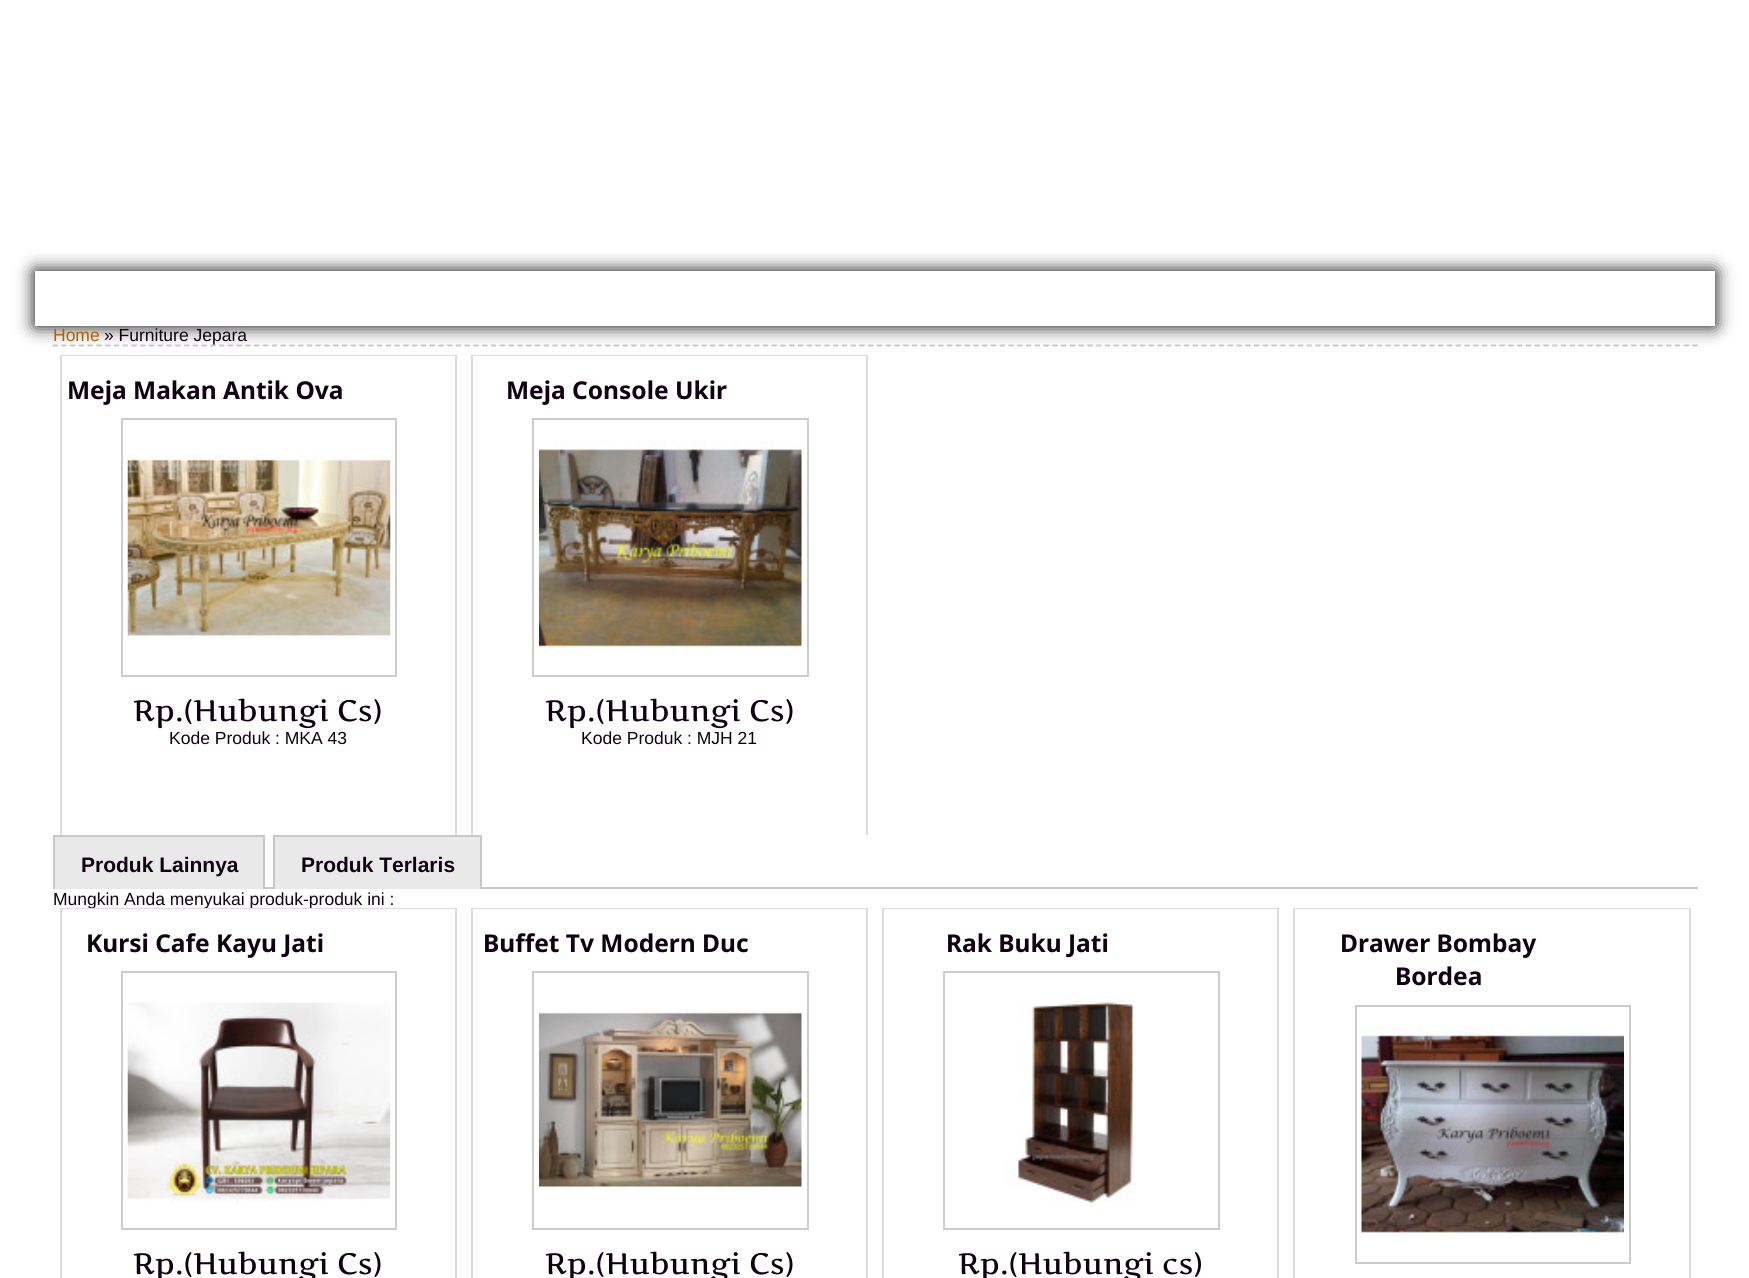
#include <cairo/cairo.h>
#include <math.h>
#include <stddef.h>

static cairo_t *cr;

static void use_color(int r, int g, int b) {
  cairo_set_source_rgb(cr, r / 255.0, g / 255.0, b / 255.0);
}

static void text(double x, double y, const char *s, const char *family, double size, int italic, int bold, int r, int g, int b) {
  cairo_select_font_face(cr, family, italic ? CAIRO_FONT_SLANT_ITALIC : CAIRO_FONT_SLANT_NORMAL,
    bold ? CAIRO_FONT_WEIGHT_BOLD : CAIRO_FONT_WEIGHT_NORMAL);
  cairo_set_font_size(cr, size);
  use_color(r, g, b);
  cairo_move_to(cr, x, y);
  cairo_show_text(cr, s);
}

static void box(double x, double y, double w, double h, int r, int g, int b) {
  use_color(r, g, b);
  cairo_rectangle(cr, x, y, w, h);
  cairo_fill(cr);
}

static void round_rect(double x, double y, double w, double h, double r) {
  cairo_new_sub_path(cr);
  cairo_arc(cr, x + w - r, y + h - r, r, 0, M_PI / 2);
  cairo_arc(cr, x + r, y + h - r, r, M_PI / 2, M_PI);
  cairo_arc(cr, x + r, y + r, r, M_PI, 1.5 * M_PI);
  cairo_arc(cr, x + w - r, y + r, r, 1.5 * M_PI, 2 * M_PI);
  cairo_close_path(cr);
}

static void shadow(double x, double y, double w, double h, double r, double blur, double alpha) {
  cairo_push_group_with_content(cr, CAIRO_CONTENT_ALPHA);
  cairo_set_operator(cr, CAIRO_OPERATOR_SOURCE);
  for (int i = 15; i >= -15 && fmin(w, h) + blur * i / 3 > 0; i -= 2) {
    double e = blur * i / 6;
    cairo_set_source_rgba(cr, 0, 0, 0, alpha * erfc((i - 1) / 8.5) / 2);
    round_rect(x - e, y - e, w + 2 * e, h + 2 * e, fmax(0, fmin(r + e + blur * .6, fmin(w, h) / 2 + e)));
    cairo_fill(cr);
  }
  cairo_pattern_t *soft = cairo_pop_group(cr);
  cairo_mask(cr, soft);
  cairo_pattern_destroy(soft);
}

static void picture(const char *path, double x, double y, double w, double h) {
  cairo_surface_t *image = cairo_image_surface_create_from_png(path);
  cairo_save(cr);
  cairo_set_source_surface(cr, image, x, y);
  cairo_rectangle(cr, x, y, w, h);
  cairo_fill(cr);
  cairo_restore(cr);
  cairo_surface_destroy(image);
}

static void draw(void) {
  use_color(255, 255, 255);
  cairo_paint(cr);
  cairo_new_path(cr);
  cairo_move_to(cr, 52.5, 345.5);
  cairo_line_to(cr, 1697.5, 345.5);
  use_color(200, 200, 200);
  cairo_set_line_width(cr, 1.8);
  cairo_set_dash(cr, (double[]){5.25, 3.52}, 2, 0);
  cairo_stroke(cr);
  cairo_save(cr);
  cairo_set_fill_rule(cr, CAIRO_FILL_RULE_EVEN_ODD);
  cairo_new_path(cr);
  cairo_move_to(cr, 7, 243);
  cairo_line_to(cr, 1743, 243);
  cairo_line_to(cr, 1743, 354);
  cairo_line_to(cr, 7, 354);
  cairo_close_path(cr);
  cairo_move_to(cr, 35, 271);
  cairo_line_to(cr, 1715, 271);
  cairo_line_to(cr, 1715, 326);
  cairo_line_to(cr, 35, 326);
  cairo_close_path(cr);
  cairo_clip(cr);
  use_color(0, 0, 0);
  shadow(35, 271, 1680, 55, 0, 9, 1);
  cairo_restore(cr);
  cairo_rectangle(cr, 122, 419, 274, 257);
  use_color(204, 204, 204);
  cairo_set_line_width(cr, 2);
  cairo_set_dash(cr, NULL, 0, 0);
  cairo_stroke(cr);
  picture("img_01.png", 127, 454, 264, 182);
  box(55, 837, 208, 52, 233, 233, 233);
  box(53, 835, 211, 2, 200, 200, 200);
  box(263, 835, 2, 54, 200, 200, 200);
  box(265, 887, 1433, 2, 200, 200, 200);
  box(275, 837, 205, 52, 233, 233, 233);
  box(273, 835, 208, 2, 200, 200, 200);
  box(273, 835, 2, 54, 200, 200, 200);
  cairo_save(cr);
  cairo_rectangle(cr, 53, 355, 411, 480);
  cairo_clip(cr);
  cairo_rectangle(cr, 61, 355, 395, 484);
  use_color(221, 221, 221);
  cairo_stroke(cr);
  cairo_restore(cr);
  cairo_rectangle(cr, 533, 419, 275, 257);
  use_color(204, 204, 204);
  cairo_stroke(cr);
  picture("img_02.png", 539, 439, 263, 211);
  box(480, 835, 2, 54, 200, 200, 200);
  cairo_save(cr);
  cairo_rectangle(cr, 464, 355, 411, 480);
  cairo_clip(cr);
  cairo_rectangle(cr, 472, 355, 395, 484);
  use_color(221, 221, 221);
  cairo_stroke(cr);
  cairo_restore(cr);
  box(53, 835, 2, 54, 200, 200, 200);
  cairo_rectangle(cr, 122, 972, 274, 257);
  use_color(204, 204, 204);
  cairo_stroke(cr);
  picture("img_03.png", 127, 1002, 264, 201);
  cairo_rectangle(cr, 533, 972, 275, 257);
  cairo_stroke(cr);
  picture("img_04.png", 539, 1010, 263, 178);
  cairo_save(cr);
  cairo_rectangle(cr, 464, 908, 411, 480);
  cairo_clip(cr);
  cairo_rectangle(cr, 472, 908, 395, 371);
  use_color(221, 221, 221);
  cairo_stroke(cr);
  cairo_restore(cr);
  cairo_rectangle(cr, 944, 972, 275, 257);
  cairo_stroke(cr);
  picture("img_05.png", 1007, 996, 128, 207);
  cairo_save(cr);
  cairo_rectangle(cr, 875, 908, 411, 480);
  cairo_clip(cr);
  cairo_rectangle(cr, 883, 908, 395, 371);
  use_color(221, 221, 221);
  cairo_stroke(cr);
  cairo_restore(cr);
  cairo_rectangle(cr, 1356, 1006, 274, 257);
  cairo_stroke(cr);
  picture("img_06.png", 1361, 1026, 263, 210);
  cairo_save(cr);
  cairo_rectangle(cr, 1286, 908, 412, 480);
  cairo_clip(cr);
  cairo_rectangle(cr, 1294, 908, 396, 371);
  use_color(221, 221, 221);
  cairo_stroke(cr);
  cairo_restore(cr);
  text(53, 341, "Home", "Liberation Sans", 17.5, 0, 0, 180, 95, 4);
  text(104, 341, "» Furniture Jepara", "Liberation Sans", 17.5, 0, 0, 17, 0, 17);
  text(67, 399, "Meja Makan Antik Ova", "Noto Sans", 24.5, 0, 1, 17, 0, 17);
  text(133, 721, "Rp.(Hubungi Cs)", "Artifika", 29.75, 0, 0, 17, 0, 17);
  text(169, 744, "Kode Produk : MKA 43", "Liberation Sans", 17.5, 0, 0, 17, 0, 17);
  text(506, 399, "Meja Console Ukir", "Noto Sans", 24.5, 0, 1, 17, 0, 17);
  text(545, 721, "Rp.(Hubungi Cs)", "Artifika", 29.75, 0, 0, 17, 0, 17);
  text(581, 744, "Kode Produk : MJH 21", "Liberation Sans", 17.5, 0, 0, 17, 0, 17);
  text(81, 872, "Produk Lainnya", "Liberation Sans", 21, 0, 1, 17, 0, 17);
  text(301, 872, "Produk Terlaris", "Liberation Sans", 21, 0, 1, 17, 0, 17);
  text(53, 905, "Mungkin Anda menyukai produk-produk ini :", "Liberation Sans", 17.5, 0, 0, 17, 0, 17);
  cairo_save(cr);
  cairo_rectangle(cr, 53, 908, 411, 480);
  cairo_clip(cr);
  cairo_rectangle(cr, 61, 908, 395, 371);
  use_color(221, 221, 221);
  cairo_stroke(cr);
  cairo_restore(cr);
  text(86, 952, "Kursi Cafe Kayu Jati", "Noto Sans", 24.5, 0, 1, 17, 0, 17);
  text(133, 1274, "Rp.(Hubungi Cs)", "Artifika", 29.75, 0, 0, 17, 0, 17);
  text(483, 952, "Buffet Tv Modern Duc", "Noto Sans", 24.5, 0, 1, 17, 0, 17);
  text(545, 1274, "Rp.(Hubungi Cs)", "Artifika", 29.75, 0, 0, 17, 0, 17);
  text(946, 952, "Rak Buku Jati", "Noto Sans", 24.5, 0, 1, 17, 0, 17);
  text(958, 1274, "Rp.(Hubungi cs)", "Artifika", 29.75, 0, 0, 17, 0, 17);
  text(1340, 952, "Drawer Bombay", "Noto Sans", 24.5, 0, 1, 17, 0, 17);
  text(1395, 985, "Bordea", "Noto Sans", 24.5, 0, 1, 17, 0, 17);
}

int main(void) {
  cairo_surface_t *surface = cairo_image_surface_create(CAIRO_FORMAT_RGB24, 1749, 1278);
  cr = cairo_create(surface);
  cairo_font_options_t *options = cairo_font_options_create();
  cairo_font_options_set_hint_metrics(options, CAIRO_HINT_METRICS_OFF);
  cairo_font_options_set_hint_style(options, CAIRO_HINT_STYLE_NONE);
  cairo_set_font_options(cr, options);
  cairo_set_miter_limit(cr, 4);
  draw();
  cairo_surface_write_to_png(surface, "out.png");
  cairo_font_options_destroy(options);
  cairo_destroy(cr);
  cairo_surface_destroy(surface);
  return 0;
}
